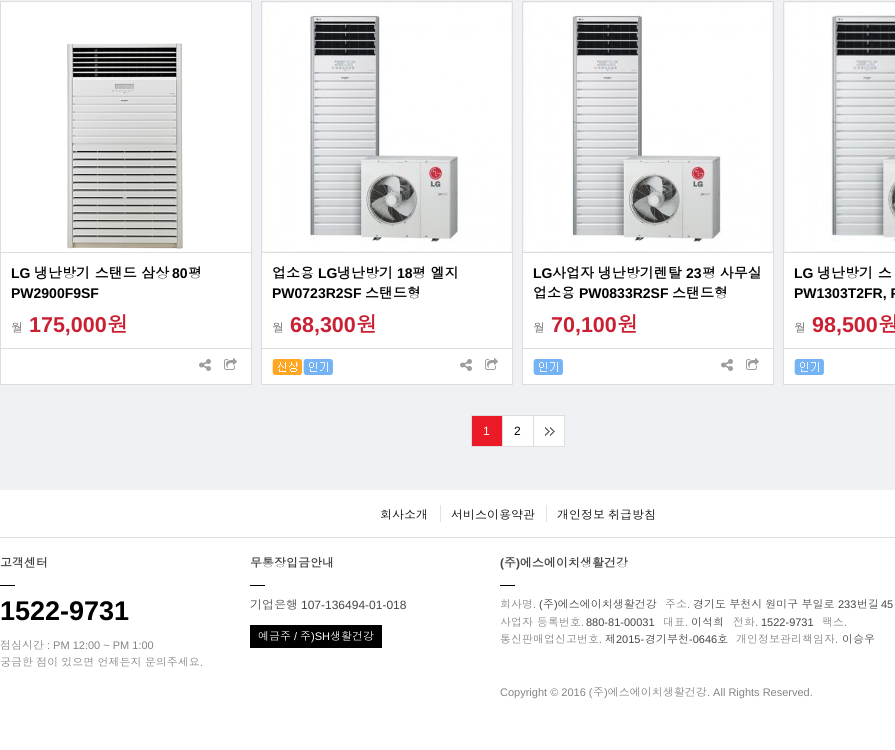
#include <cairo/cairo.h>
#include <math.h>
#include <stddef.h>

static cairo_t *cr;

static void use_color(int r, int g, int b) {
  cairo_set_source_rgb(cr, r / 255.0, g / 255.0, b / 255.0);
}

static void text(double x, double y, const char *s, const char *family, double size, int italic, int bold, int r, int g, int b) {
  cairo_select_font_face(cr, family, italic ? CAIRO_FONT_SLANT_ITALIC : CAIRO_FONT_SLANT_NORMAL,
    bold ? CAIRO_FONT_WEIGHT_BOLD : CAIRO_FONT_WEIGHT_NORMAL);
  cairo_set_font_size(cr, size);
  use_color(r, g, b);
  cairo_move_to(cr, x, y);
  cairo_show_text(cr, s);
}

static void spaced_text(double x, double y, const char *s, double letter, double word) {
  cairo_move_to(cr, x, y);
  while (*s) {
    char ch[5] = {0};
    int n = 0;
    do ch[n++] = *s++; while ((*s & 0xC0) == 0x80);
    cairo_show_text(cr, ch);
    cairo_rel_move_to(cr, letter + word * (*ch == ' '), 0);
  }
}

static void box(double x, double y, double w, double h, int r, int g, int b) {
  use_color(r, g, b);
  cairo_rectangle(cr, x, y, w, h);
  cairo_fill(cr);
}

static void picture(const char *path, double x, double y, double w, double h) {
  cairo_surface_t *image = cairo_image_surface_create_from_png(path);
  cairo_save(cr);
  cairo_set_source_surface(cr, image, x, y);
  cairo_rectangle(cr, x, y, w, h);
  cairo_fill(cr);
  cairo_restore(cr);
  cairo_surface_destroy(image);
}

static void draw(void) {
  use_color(255, 255, 255);
  cairo_paint(cr);
  box(0, 0, 895, 490, 240, 241, 244);
  use_color(255, 255, 255);
  cairo_rectangle(cr, 0.5, 1.5, 251, 383);
  cairo_fill_preserve(cr);
  use_color(221, 221, 221);
  cairo_set_line_width(cr, 1);
  cairo_stroke(cr);
  box(1, 252, 250, 1, 221, 221, 221);
  picture("img_01.png", 67, 43, 116, 206);
  box(1, 348, 250, 1, 221, 221, 221);
  picture("img_02.png", 199, 359, 12, 12);
  picture("img_03.png", 224, 358, 13, 12);
  box(262, 253, 250, 131, 255, 255, 255);
  cairo_rectangle(cr, 261.5, 1.5, 251, 383);
  use_color(221, 221, 221);
  cairo_stroke(cr);
  box(262, 252, 250, 1, 221, 221, 221);
  picture("img_04.png", 262, 2, 250, 250);
  box(262, 348, 250, 1, 221, 221, 221);
  picture("img_05.png", 272, 359, 30, 16);
  picture("img_06.png", 303, 359, 30, 16);
  picture("img_02.png", 460, 359, 12, 12);
  picture("img_03.png", 485, 358, 13, 12);
  box(523, 253, 250, 131, 255, 255, 255);
  cairo_rectangle(cr, 522.5, 1.5, 251, 383);
  use_color(221, 221, 221);
  cairo_stroke(cr);
  box(523, 252, 250, 1, 221, 221, 221);
  picture("img_07.png", 523, 2, 250, 250);
  box(523, 348, 250, 1, 221, 221, 221);
  picture("img_06.png", 533, 359, 30, 16);
  picture("img_02.png", 721, 359, 12, 12);
  picture("img_03.png", 746, 358, 13, 12);
  box(784, 253, 111, 131, 255, 255, 255);
  cairo_rectangle(cr, 783.5, 1.5, 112, 383);
  use_color(221, 221, 221);
  cairo_stroke(cr);
  box(784, 252, 111, 1, 221, 221, 221);
  picture("img_08.png", 784, 2, 111, 250);
  box(784, 348, 111, 1, 221, 221, 221);
  picture("img_06.png", 794, 359, 30, 16);
  box(471, 415, 94, 1, 221, 221, 221);
  box(564, 415, 1, 32, 221, 221, 221);
  box(471, 446, 94, 1, 221, 221, 221);
  box(472, 416, 30, 30, 234, 27, 39);
  box(471, 416, 1, 30, 221, 221, 221);
  box(503, 416, 30, 30, 255, 255, 255);
  box(502, 416, 1, 30, 221, 221, 221);
  picture("img_09.png", 534, 416, 30, 30);
  box(533, 416, 1, 30, 221, 221, 221);
  box(0, 537, 895, 1, 221, 221, 221);
  box(440, 505, 1, 17, 227, 227, 227);
  box(546, 505, 1, 17, 227, 227, 227);
  box(0, 585, 15, 1, 0, 0, 0);
  box(250, 585, 15, 1, 0, 0, 0);
  box(250, 625, 132, 23, 0, 0, 0);
  box(500, 585, 15, 1, 0, 0, 0);
  text(11, 278, "LG", "Liberation Sans", 14, 0, 1, 0, 0, 0);
  text(34, 278, "냉난방기 스탠드 삼상", "Dotum", 14, 0, 1, 0, 0, 0);
  text(172, 278, "80", "Liberation Sans", 14, 0, 1, 0, 0, 0);
  text(188, 278, "평", "Dotum", 14, 0, 1, 0, 0, 0);
  text(11, 298, "PW2900F9SF", "Liberation Sans", 14, 0, 1, 0, 0, 0);
  text(11, 332, "월", "Dotum", 12, 0, 0, 102, 102, 102);
  text(29, 332, "175,000", "Liberation Sans", 21.5, 0, 1, 201, 32, 51);
  text(107, 332, "원", "Dotum", 21.5, 0, 1, 201, 32, 51);
  text(272, 278, "업소용", "Dotum", 14, 0, 1, 0, 0, 0);
  text(318, 278, "LG", "Liberation Sans", 14, 0, 1, 0, 0, 0);
  text(337, 278, "냉난방기", "Dotum", 14, 0, 1, 0, 0, 0);
  text(397, 278, "18", "Liberation Sans", 14, 0, 1, 0, 0, 0);
  text(412, 278, "평 엘지", "Dotum", 14, 0, 1, 0, 0, 0);
  text(272, 298, "PW0723R2SF", "Liberation Sans", 14, 0, 1, 0, 0, 0);
  text(365, 298, "스탠드형", "Dotum", 14, 0, 1, 0, 0, 0);
  text(272, 332, "월", "Dotum", 12, 0, 0, 102, 102, 102);
  text(290, 332, "68,300", "Liberation Sans", 21.5, 0, 1, 201, 32, 51);
  text(356, 332, "원", "Dotum", 21.5, 0, 1, 201, 32, 51);
  text(533, 278, "LG", "Liberation Sans", 14, 0, 1, 0, 0, 0);
  cairo_select_font_face(cr, "Dotum", CAIRO_FONT_SLANT_NORMAL, CAIRO_FONT_WEIGHT_BOLD);
  spaced_text(552, 278, "사업자 냉난방기렌탈", 0, -1);
  text(686, 278, "23", "Liberation Sans", 14, 0, 1, 0, 0, 0);
  cairo_select_font_face(cr, "Dotum", CAIRO_FONT_SLANT_NORMAL, CAIRO_FONT_WEIGHT_BOLD);
  spaced_text(702, 278, "평 사무실", 0, -1);
  text(533, 298, "업소용", "Dotum", 14, 0, 1, 0, 0, 0);
  text(579, 298, "PW0833R2SF", "Liberation Sans", 14, 0, 1, 0, 0, 0);
  text(672, 298, "스탠드형", "Dotum", 14, 0, 1, 0, 0, 0);
  text(533, 332, "월", "Dotum", 12, 0, 0, 102, 102, 102);
  text(551, 332, "70,100", "Liberation Sans", 21.5, 0, 1, 201, 32, 51);
  text(617, 332, "원", "Dotum", 21.5, 0, 1, 201, 32, 51);
  text(794, 278, "LG", "Liberation Sans", 14, 0, 1, 0, 0, 0);
  text(817, 278, "냉난방기 스", "Dotum", 14, 0, 1, 0, 0, 0);
  text(794, 298, "PW1303T2FR, P", "Liberation Sans", 14, 0, 1, 0, 0, 0);
  text(794, 332, "월", "Dotum", 12, 0, 0, 102, 102, 102);
  text(812, 332, "98,500", "Liberation Sans", 21.5, 0, 1, 201, 32, 51);
  text(878, 332, "원", "Dotum", 21.5, 0, 1, 201, 32, 51);
  text(483, 435, "1", "Liberation Sans", 12, 0, 0, 255, 255, 255);
  text(514, 435, "2", "Liberation Sans", 12, 0, 0, 0, 0, 0);
  text(380, 519, "회사소개", "Dotum", 12, 0, 0, 0, 0, 0);
  text(451, 519, "서비스이용약관", "Dotum", 12, 0, 0, 0, 0, 0);
  spaced_text(557, 519, "개인정보 취급방침", 0, -1);
  text(0, 567, "고객센터", "Dotum", 12, 0, 1, 68, 68, 68);
  text(0, 620, "1522-9731", "Liberation Sans", 27, 0, 1, 0, 0, 0);
  text(0, 649, "점심시간", "Dotum", 11, 0, 0, 132, 132, 132);
  text(47, 649, ": PM 12:00 ~ PM 1:00", "Liberation Sans", 11, 0, 0, 132, 132, 132);
  cairo_select_font_face(cr, "Dotum", CAIRO_FONT_SLANT_NORMAL, CAIRO_FONT_WEIGHT_NORMAL);
  spaced_text(0, 666, "궁금한 점이 있으면 언제든지 문의주세요", 0, -0.5);
  text(200, 666, ".", "Liberation Sans", 11, 0, 0, 132, 132, 132);
  text(250, 567, "무통장입금안내", "Dotum", 12, 0, 1, 68, 68, 68);
  text(250, 609, "기업은행", "Dotum", 12, 0, 0, 68, 68, 68);
  text(301, 609, "107-136494-01-018", "Liberation Sans", 12, 0, 0, 68, 68, 68);
  text(258, 640, "예금주", "Dotum", 11, 0, 0, 255, 255, 255);
  text(294, 640, "/", "Liberation Sans", 11, 0, 0, 255, 255, 255);
  text(300, 640, "주", "Dotum", 11, 0, 0, 255, 255, 255);
  text(311, 640, ")SH", "Liberation Sans", 11, 0, 0, 255, 255, 255);
  text(330, 640, "생활건강", "Dotum", 11, 0, 0, 255, 255, 255);
  text(500, 567, "(", "Liberation Sans", 12, 0, 1, 68, 68, 68);
  text(504, 567, "주 에스에이치생활건강", "Dotum", 12, 0, 1, 68, 68, 68);
  text(516, 567, ")", "Liberation Sans", 12, 0, 1, 68, 68, 68);
  text(500, 608, "회사명", "Dotum", 11, 0, 0, 132, 132, 132);
  text(533, 608, ".", "Liberation Sans", 11, 0, 0, 132, 132, 132);
  text(539, 608, "(", "Liberation Sans", 11, 0, 0, 68, 68, 68);
  text(543, 608, "주 에스에이치생활건강", "Dotum", 11, 0, 0, 68, 68, 68);
  text(554, 608, ")", "Liberation Sans", 11, 0, 0, 68, 68, 68);
  text(665, 608, "주소", "Dotum", 11, 0, 0, 132, 132, 132);
  text(687, 608, ".", "Liberation Sans", 11, 0, 0, 132, 132, 132);
  cairo_select_font_face(cr, "Dotum", CAIRO_FONT_SLANT_NORMAL, CAIRO_FONT_WEIGHT_NORMAL);
  use_color(68, 68, 68);
  spaced_text(693, 608, "경기도 부천시 원미구 부일로", 0, -0.5);
  text(838, 608, "233", "Liberation Sans", 11, 0, 0, 68, 68, 68);
  text(857, 608, "번길", "Dotum", 11, 0, 0, 68, 68, 68);
  text(881, 608, "45", "Liberation Sans", 11, 0, 0, 68, 68, 68);
  text(500, 626, "사업자 등록번호", "Dotum", 11, 0, 0, 132, 132, 132);
  text(581, 626, ".", "Liberation Sans", 11, 0, 0, 132, 132, 132);
  text(586, 626, "880-81-00031", "Liberation Sans", 11, 0, 0, 68, 68, 68);
  text(663, 626, "대표", "Dotum", 11, 0, 0, 132, 132, 132);
  text(685, 626, ".", "Liberation Sans", 11, 0, 0, 132, 132, 132);
  text(691, 626, "이석희", "Dotum", 11, 0, 0, 68, 68, 68);
  text(733, 626, "전화", "Dotum", 11, 0, 0, 132, 132, 132);
  text(755, 626, ".", "Liberation Sans", 11, 0, 0, 132, 132, 132);
  text(761, 626, "1522-9731", "Liberation Sans", 11, 0, 0, 68, 68, 68);
  text(822, 626, "팩스", "Dotum", 11, 0, 0, 132, 132, 132);
  text(844, 626, ".", "Liberation Sans", 11, 0, 0, 132, 132, 132);
  text(500, 643, "통신판매업신고번호", "Dotum", 11, 0, 0, 132, 132, 132);
  text(599, 643, ".", "Liberation Sans", 11, 0, 0, 132, 132, 132);
  text(605, 643, "제", "Dotum", 11, 0, 0, 68, 68, 68);
  text(616, 643, "2015-", "Liberation Sans", 11, 0, 0, 68, 68, 68);
  text(645, 643, "경기부천", "Dotum", 11, 0, 0, 68, 68, 68);
  text(689, 643, "-0646", "Liberation Sans", 11, 0, 0, 68, 68, 68);
  text(717, 643, "호", "Dotum", 11, 0, 0, 68, 68, 68);
  text(736, 643, "개인정보관리책임자", "Dotum", 11, 0, 0, 132, 132, 132);
  text(835, 643, ".", "Liberation Sans", 11, 0, 0, 132, 132, 132);
  text(842, 643, "이승우", "Dotum", 11, 0, 0, 68, 68, 68);
  text(500, 696, "Copyright © 2016 (", "Liberation Sans", 11, 0, 0, 132, 132, 132);
  text(593, 696, "주 에스에이치생활건강", "Dotum", 11, 0, 0, 132, 132, 132);
  text(604, 696, ")", "Liberation Sans", 11, 0, 0, 132, 132, 132);
  text(707, 696, ". All Rights Reserved.", "Liberation Sans", 11, 0, 0, 132, 132, 132);
}

int main(void) {
  cairo_surface_t *surface = cairo_image_surface_create(CAIRO_FORMAT_RGB24, 895, 750);
  cr = cairo_create(surface);
  cairo_font_options_t *options = cairo_font_options_create();
  cairo_font_options_set_hint_metrics(options, CAIRO_HINT_METRICS_OFF);
  cairo_font_options_set_hint_style(options, CAIRO_HINT_STYLE_NONE);
  cairo_set_font_options(cr, options);
  cairo_set_miter_limit(cr, 4);
  draw();
  cairo_surface_write_to_png(surface, "out.png");
  cairo_font_options_destroy(options);
  cairo_destroy(cr);
  cairo_surface_destroy(surface);
  return 0;
}
